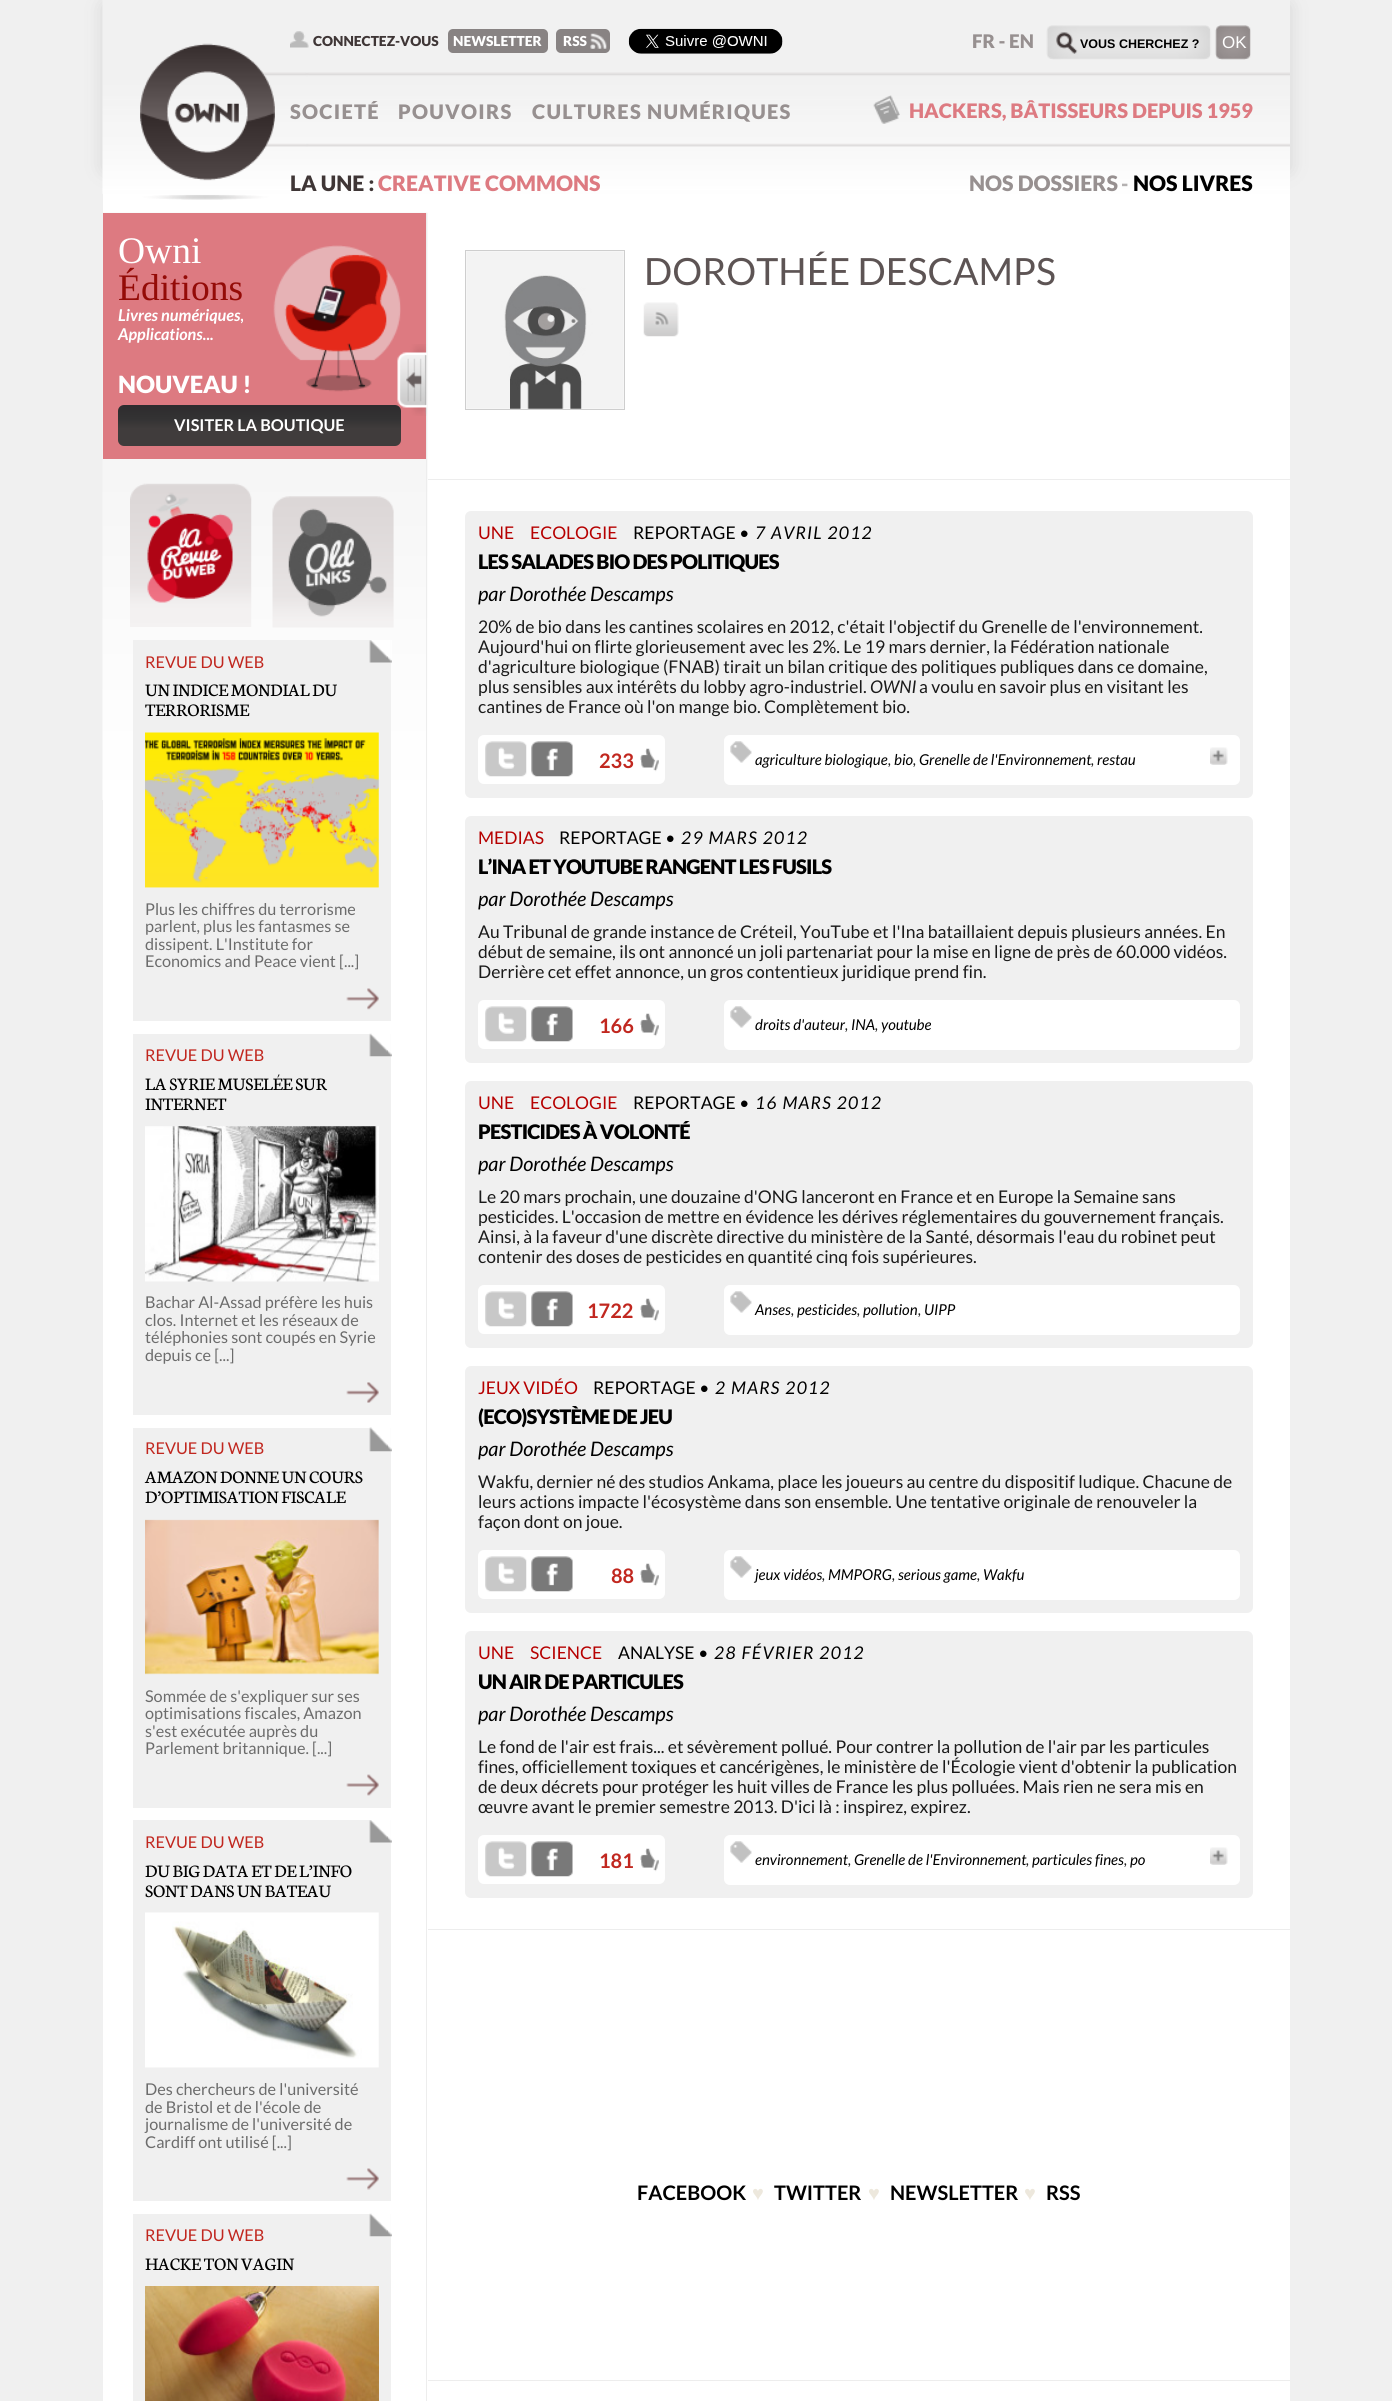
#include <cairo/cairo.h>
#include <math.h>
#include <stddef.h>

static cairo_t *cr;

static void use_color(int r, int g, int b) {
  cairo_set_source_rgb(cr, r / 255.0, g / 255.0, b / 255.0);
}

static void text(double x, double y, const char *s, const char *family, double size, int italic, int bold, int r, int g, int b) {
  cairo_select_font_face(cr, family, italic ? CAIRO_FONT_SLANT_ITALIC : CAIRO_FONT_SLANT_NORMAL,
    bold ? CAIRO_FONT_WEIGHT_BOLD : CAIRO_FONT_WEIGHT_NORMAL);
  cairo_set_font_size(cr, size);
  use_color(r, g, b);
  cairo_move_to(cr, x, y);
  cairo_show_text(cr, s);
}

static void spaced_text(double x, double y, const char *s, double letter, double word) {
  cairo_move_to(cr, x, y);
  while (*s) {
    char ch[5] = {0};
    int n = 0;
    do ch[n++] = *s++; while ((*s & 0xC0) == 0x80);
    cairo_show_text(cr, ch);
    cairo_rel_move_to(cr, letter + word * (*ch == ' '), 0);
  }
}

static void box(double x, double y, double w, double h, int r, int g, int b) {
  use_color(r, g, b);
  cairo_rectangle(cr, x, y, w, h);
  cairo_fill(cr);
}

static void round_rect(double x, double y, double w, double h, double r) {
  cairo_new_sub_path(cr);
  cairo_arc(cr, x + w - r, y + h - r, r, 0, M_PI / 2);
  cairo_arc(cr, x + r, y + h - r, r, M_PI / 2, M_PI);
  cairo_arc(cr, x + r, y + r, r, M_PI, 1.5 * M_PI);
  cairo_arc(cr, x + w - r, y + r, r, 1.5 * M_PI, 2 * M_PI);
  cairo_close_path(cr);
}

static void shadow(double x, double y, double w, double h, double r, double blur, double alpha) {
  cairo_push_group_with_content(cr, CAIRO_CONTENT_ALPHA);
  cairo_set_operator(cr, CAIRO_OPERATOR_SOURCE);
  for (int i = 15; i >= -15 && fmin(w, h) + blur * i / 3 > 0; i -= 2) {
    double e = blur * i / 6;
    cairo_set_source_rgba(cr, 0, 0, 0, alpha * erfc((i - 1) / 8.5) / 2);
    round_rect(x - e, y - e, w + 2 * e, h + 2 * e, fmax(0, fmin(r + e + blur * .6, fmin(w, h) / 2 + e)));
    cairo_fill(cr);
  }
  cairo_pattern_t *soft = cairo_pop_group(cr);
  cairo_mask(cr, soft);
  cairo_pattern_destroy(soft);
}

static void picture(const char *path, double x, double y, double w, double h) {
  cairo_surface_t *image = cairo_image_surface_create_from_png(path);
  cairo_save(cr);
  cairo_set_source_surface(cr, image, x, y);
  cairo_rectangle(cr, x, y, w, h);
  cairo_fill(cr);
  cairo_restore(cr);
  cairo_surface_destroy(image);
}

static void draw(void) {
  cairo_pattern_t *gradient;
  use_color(240, 240, 240);
  cairo_paint(cr);
  use_color(207, 207, 207);
  shadow(105, 6, 594, 163, 0, 9.5, 1);
  shadow(694, 6, 594, 163, 0, 9.5, 1);
  box(103, 193, 1187, 2208, 255, 255, 255);
  picture("img_01.png", 102, 0, 1188, 194);
  picture("img_02.png", 290, 31, 19, 17);
  use_color(136, 131, 131);
  round_rect(448, 29, 100, 24, 5);
  cairo_fill(cr);
  round_rect(556, 29, 54, 24, 5);
  cairo_fill(cr);
  picture("img_03.png", 590, 33, 17, 16);
  picture("img_04.png", 628, 28, 155, 26);
  picture("img_05.png", 1046, 25, 205, 35);
  picture("img_07.png", 261, 72, 1029, 75);
  picture("img_06.png", 140, 43, 135, 157);
  picture("img_08.png", 873, 95, 27, 29);
  picture("img_09.png", 102, 212, 326, 588);
  box(426, 213, 1, 2188, 237, 237, 237);
  box(103, 213, 323, 246, 221, 122, 129);
  picture("img_10.png", 273, 245, 128, 147);
  gradient = cairo_pattern_create_linear(401, 446, 401, 405);
  cairo_pattern_add_color_stop_rgba(gradient, 0.42, 0.251, 0.235, 0.235, 1);
  cairo_pattern_add_color_stop_rgba(gradient, 0.67, 0.2, 0.196, 0.2, 1);
  cairo_pattern_add_color_stop_rgba(gradient, 0.98, 0.18, 0.173, 0.18, 1);
  cairo_set_source(cr, gradient);
  cairo_pattern_destroy(gradient);
  round_rect(118, 405, 283, 41, 6);
  cairo_fill(cr);
  picture("img_11.png", 130, 483, 122, 144);
  picture("img_12.png", 272, 496, 122, 132);
  box(133, 640, 258, 381, 240, 240, 240);
  picture("img_13.png", 369, 640, 23, 23);
  picture("img_14.png", 145, 732, 234, 156);
  picture("img_15.png", 346, 988, 33, 22);
  box(133, 1034, 258, 381, 240, 240, 240);
  picture("img_16.png", 369, 1033, 23, 24);
  picture("img_17.png", 145, 1126, 234, 156);
  picture("img_18.png", 346, 1382, 33, 21);
  box(133, 1428, 258, 380, 240, 240, 240);
  picture("img_19.png", 369, 1427, 23, 25);
  picture("img_20.png", 145, 1519, 234, 156);
  picture("img_21.png", 346, 1774, 33, 22);
  box(133, 1820, 258, 381, 240, 240, 240);
  picture("img_22.png", 369, 1820, 23, 23);
  picture("img_23.png", 145, 1912, 234, 156);
  picture("img_24.png", 346, 2168, 33, 22);
  box(133, 2214, 258, 187, 240, 240, 240);
  picture("img_16.png", 369, 2213, 23, 24);
  picture("img_25.png", 145, 2286, 234, 115);
  cairo_rectangle(cr, 465.5, 250.5, 159, 159);
  use_color(206, 206, 206);
  cairo_set_line_width(cr, 1);
  cairo_stroke(cr);
  picture("img_26.png", 466, 251, 158, 158);
  picture("img_27.png", 643, 302, 36, 35);
  picture("img_28.png", 397, 344, 30, 72);
  box(428, 479, 862, 1, 237, 237, 237);
  use_color(240, 240, 240);
  round_rect(465, 511, 788, 287, 6);
  cairo_fill(cr);
  use_color(255, 255, 255);
  round_rect(478, 735, 187, 49, 6);
  cairo_fill(cr);
  picture("img_29.png", 485, 741, 42, 36);
  picture("img_30.png", 531, 741, 42, 36);
  picture("img_31.png", 640, 748, 19, 24);
  round_rect(724, 735, 516, 50, 6);
  cairo_fill(cr);
  picture("img_32.png", 730, 741, 22, 22);
  picture("img_33.png", 1210, 747, 18, 18);
  use_color(240, 240, 240);
  round_rect(465, 816, 788, 247, 6);
  cairo_fill(cr);
  use_color(255, 255, 255);
  round_rect(478, 1000, 187, 49, 6);
  cairo_fill(cr);
  picture("img_29.png", 485, 1006, 42, 36);
  picture("img_30.png", 531, 1006, 42, 36);
  picture("img_31.png", 640, 1013, 19, 24);
  round_rect(724, 1000, 516, 50, 6);
  cairo_fill(cr);
  picture("img_32.png", 730, 1006, 22, 22);
  use_color(240, 240, 240);
  round_rect(465, 1081, 788, 267, 6);
  cairo_fill(cr);
  use_color(255, 255, 255);
  round_rect(478, 1285, 187, 49, 6);
  cairo_fill(cr);
  picture("img_29.png", 485, 1291, 42, 36);
  picture("img_30.png", 531, 1291, 42, 36);
  picture("img_31.png", 640, 1298, 19, 24);
  round_rect(724, 1285, 516, 50, 6);
  cairo_fill(cr);
  picture("img_32.png", 730, 1291, 22, 22);
  use_color(240, 240, 240);
  round_rect(465, 1366, 788, 247, 6);
  cairo_fill(cr);
  use_color(255, 255, 255);
  round_rect(478, 1550, 187, 49, 6);
  cairo_fill(cr);
  picture("img_34.png", 485, 1556, 42, 36);
  picture("img_35.png", 531, 1556, 42, 36);
  picture("img_36.png", 640, 1563, 19, 24);
  round_rect(724, 1550, 516, 50, 6);
  cairo_fill(cr);
  picture("img_37.png", 730, 1556, 22, 22);
  use_color(240, 240, 240);
  round_rect(465, 1631, 788, 267, 6);
  cairo_fill(cr);
  use_color(255, 255, 255);
  round_rect(478, 1835, 187, 49, 6);
  cairo_fill(cr);
  picture("img_38.png", 485, 1841, 42, 36);
  picture("img_39.png", 531, 1841, 42, 36);
  picture("img_40.png", 640, 1848, 19, 24);
  round_rect(724, 1835, 516, 50, 6);
  cairo_fill(cr);
  picture("img_41.png", 730, 1841, 22, 22);
  picture("img_42.png", 1210, 1847, 18, 18);
  box(428, 1929, 862, 1, 237, 237, 237);
  box(428, 2380, 862, 1, 237, 237, 237);
  text(313, 46, "CONNECTEZ-VOUS", "Lato Black", 13.75, 0, 0, 63, 54, 54);
  text(453, 46, "NEWSLETTER", "Lato Black", 13.75, 0, 0, 255, 255, 255);
  text(563, 46, "RSS", "Lato Black", 13.75, 0, 0, 255, 255, 255);
  text(972, 48, "FR - EN", "Lato Black", 18.75, 0, 0, 151, 144, 144);
  text(1080, 48, "VOUS CHERCHEZ ?", "Liberation Sans", 12.5, 0, 1, 0, 0, 0);
  text(1222, 48, "OK", "Liberation Sans", 17, 0, 0, 255, 255, 255);
  cairo_select_font_face(cr, "Lato Black", CAIRO_FONT_SLANT_NORMAL, CAIRO_FONT_WEIGHT_NORMAL);
  cairo_set_font_size(cr, 20);
  use_color(151, 144, 144);
  spaced_text(290, 119, "SOCIETÉ", 1.25, 0);
  spaced_text(398, 119, "POUVOIRS", 1.25, 0);
  spaced_text(532, 119, "CULTURES NUMÉRIQUES", 1.25, 0);
  text(909, 118, "HACKERS, BÂTISSEURS DEPUIS 1959", "Lato Black", 20, 0, 0, 221, 122, 129);
  text(290, 191, "LA UNE :", "Lato Black", 21.25, 0, 0, 63, 54, 54);
  text(378, 191, "CREATIVE COMMONS", "Lato Black", 21.25, 0, 0, 221, 122, 129);
  text(969, 191, "NOS DOSSIERS", "Lato Black", 21.25, 0, 0, 151, 144, 144);
  text(1121, 191, "-", "Lato Black", 20, 0, 0, 180, 177, 177);
  text(1133, 191, "NOS LIVRES", "Lato Black", 21.25, 0, 0, 0, 0, 0);
  text(118, 263, "Owni", "Liberation Serif", 37.5, 0, 0, 255, 255, 255);
  text(118, 300, "Éditions", "Liberation Serif", 37.5, 0, 0, 148, 11, 7);
  text(118, 321, "Livres numériques,", "Lato", 16.25, 1, 1, 255, 255, 255);
  text(118, 340, "Applications...", "Lato", 16.25, 1, 1, 255, 255, 255);
  text(118, 393, "NOUVEAU !", "Lato Black", 23.75, 0, 0, 255, 255, 255);
  text(174, 431, "VISITER LA BOUTIQUE", "Lato", 16.25, 0, 1, 255, 255, 255);
  text(145, 668, "REVUE DU WEB", "Lato", 16.25, 0, 0, 193, 39, 31);
  text(145, 696, "UN INDICE MONDIAL DU", "Neuton", 18.75, 0, 0, 0, 0, 0);
  text(145, 716, "TERRORISME", "Neuton", 18.75, 0, 0, 0, 0, 0);
  text(145, 915, "Plus les chiffres du terrorisme", "Lato", 16.25, 0, 0, 108, 108, 108);
  text(145, 932, "parlent, plus les fantasmes se", "Lato", 16.25, 0, 0, 108, 108, 108);
  text(145, 950, "dissipent. L'Institute for", "Lato", 16.25, 0, 0, 108, 108, 108);
  text(145, 967, "Economics and Peace vient [...]", "Lato", 16.25, 0, 0, 108, 108, 108);
  text(145, 1061, "REVUE DU WEB", "Lato", 16.25, 0, 0, 193, 39, 31);
  text(145, 1090, "LA SYRIE MUSELÉE SUR", "Neuton", 18.75, 0, 0, 0, 0, 0);
  text(145, 1110, "INTERNET", "Neuton", 18.75, 0, 0, 0, 0, 0);
  text(145, 1308, "Bachar Al-Assad préfère les huis", "Lato", 16.25, 0, 0, 108, 108, 108);
  text(145, 1326, "clos. Internet et les réseaux de", "Lato", 16.25, 0, 0, 108, 108, 108);
  text(145, 1343, "téléphonies sont coupés en Syrie", "Lato", 16.25, 0, 0, 108, 108, 108);
  text(145, 1361, "depuis ce [...]", "Lato", 16.25, 0, 0, 108, 108, 108);
  text(145, 1454, "REVUE DU WEB", "Lato", 16.25, 0, 0, 193, 39, 31);
  text(145, 1483, "AMAZON DONNE UN COURS", "Neuton", 18.75, 0, 0, 0, 0, 0);
  text(145, 1503, "D’OPTIMISATION FISCALE", "Neuton", 18.75, 0, 0, 0, 0, 0);
  text(145, 1702, "Sommée de s'expliquer sur ses", "Lato", 16.25, 0, 0, 108, 108, 108);
  text(145, 1719, "optimisations fiscales, Amazon", "Lato", 16.25, 0, 0, 108, 108, 108);
  text(145, 1737, "s'est exécutée auprès du", "Lato", 16.25, 0, 0, 108, 108, 108);
  text(145, 1754, "Parlement britannique. [...]", "Lato", 16.25, 0, 0, 108, 108, 108);
  text(145, 1848, "REVUE DU WEB", "Lato", 16.25, 0, 0, 193, 39, 31);
  text(145, 1877, "DU BIG DATA ET DE L’INFO", "Neuton", 18.75, 0, 0, 0, 0, 0);
  text(145, 1897, "SONT DANS UN BATEAU", "Neuton", 18.75, 0, 0, 0, 0, 0);
  text(145, 2095, "Des chercheurs de l'université", "Lato", 16.25, 0, 0, 108, 108, 108);
  text(145, 2113, "de Bristol et de l'école de", "Lato", 16.25, 0, 0, 108, 108, 108);
  text(145, 2130, "journalisme de l'université de", "Lato", 16.25, 0, 0, 108, 108, 108);
  text(145, 2148, "Cardiff ont utilisé [...]", "Lato", 16.25, 0, 0, 108, 108, 108);
  text(145, 2241, "REVUE DU WEB", "Lato", 16.25, 0, 0, 193, 39, 31);
  text(145, 2270, "HACKE TON VAGIN", "Neuton", 18.75, 0, 0, 0, 0, 0);
  text(644, 285, "DOROTHÉE DESCAMPS", "Lato", 37.5, 0, 0, 93, 84, 84);
  text(478, 539, "UNE", "Lato", 17.5, 0, 0, 182, 0, 0);
  text(530, 539, "ECOLOGIE", "Lato", 17.5, 0, 0, 182, 0, 0);
  text(633, 539, "REPORTAGE", "Lato", 17.5, 0, 0, 0, 0, 0);
  cairo_select_font_face(cr, "Lato", CAIRO_FONT_SLANT_ITALIC, CAIRO_FONT_WEIGHT_NORMAL);
  spaced_text(739, 539, "• 7 AVRIL 2012", 1.25, 0);
  cairo_select_font_face(cr, "Lato Black", CAIRO_FONT_SLANT_NORMAL, CAIRO_FONT_WEIGHT_NORMAL);
  cairo_set_font_size(cr, 20);
  spaced_text(478, 569, "LES SALADES BIO DES POLITIQUES", -0.8, 0);
  text(478, 601, "par Dorothée Descamps", "Lato", 20, 1, 0, 0, 0, 0);
  text(478, 633, "20% de bio dans les cantines scolaires en 2012, c'était l'objectif du Grenelle de l'environnement.", "Lato", 17.5, 0, 0, 26, 26, 26);
  text(478, 653, "Aujourd'hui on flirte glorieusement avec les 2%. Le 19 mars dernier, la Fédération nationale", "Lato", 17.5, 0, 0, 26, 26, 26);
  text(478, 673, "d'agriculture biologique (FNAB) tirait un bilan critique des politiques publiques dans ce domaine,", "Lato", 17.5, 0, 0, 26, 26, 26);
  text(478, 693, "plus sensibles aux intérêts du lobby agro-industriel.", "Lato", 17.5, 0, 0, 26, 26, 26);
  text(870, 693, "OWNI", "Lato", 17.5, 1, 0, 26, 26, 26);
  text(919, 693, "a voulu en savoir plus en visitant les", "Lato", 17.5, 0, 0, 26, 26, 26);
  text(478, 713, "cantines de France où l'on mange bio. Complètement bio.", "Lato", 17.5, 0, 0, 26, 26, 26);
  text(599, 768, "233", "Lato", 20, 0, 1, 193, 39, 31);
  text(755, 765, "agriculture biologique", "Lato", 15, 1, 0, 0, 0, 0);
  text(888, 765, ",", "Lato", 15, 1, 0, 26, 26, 26);
  text(894, 765, "bio", "Lato", 15, 1, 0, 0, 0, 0);
  text(913, 765, ",", "Lato", 15, 1, 0, 26, 26, 26);
  text(919, 765, "Grenelle de l'Environnement", "Lato", 15, 1, 0, 0, 0, 0);
  text(1091, 765, ",", "Lato", 15, 1, 0, 26, 26, 26);
  text(1097, 765, "restau", "Lato", 15, 1, 0, 0, 0, 0);
  text(478, 844, "MEDIAS", "Lato", 17.5, 0, 0, 182, 0, 0);
  text(559, 844, "REPORTAGE", "Lato", 17.5, 0, 0, 0, 0, 0);
  cairo_select_font_face(cr, "Lato", CAIRO_FONT_SLANT_ITALIC, CAIRO_FONT_WEIGHT_NORMAL);
  spaced_text(665, 844, "• 29 MARS 2012", 1.25, 0);
  cairo_select_font_face(cr, "Lato Black", CAIRO_FONT_SLANT_NORMAL, CAIRO_FONT_WEIGHT_NORMAL);
  cairo_set_font_size(cr, 20);
  spaced_text(478, 874, "L’INA ET YOUTUBE RANGENT LES FUSILS", -0.8, 0);
  text(478, 906, "par Dorothée Descamps", "Lato", 20, 1, 0, 0, 0, 0);
  text(478, 938, "Au Tribunal de grande instance de Créteil, YouTube et l'Ina bataillaient depuis plusieurs années. En", "Lato", 17.5, 0, 0, 26, 26, 26);
  text(478, 958, "début de semaine, ils ont annoncé un joli partenariat pour la mise en ligne de près de 60.000 vidéos.", "Lato", 17.5, 0, 0, 26, 26, 26);
  text(478, 978, "Derrière cet effet annonce, un gros contentieux juridique prend fin.", "Lato", 17.5, 0, 0, 26, 26, 26);
  text(599, 1033, "166", "Lato", 20, 0, 1, 193, 39, 31);
  text(755, 1030, "droits d'auteur", "Lato", 15, 1, 0, 0, 0, 0);
  text(845, 1030, ",", "Lato", 15, 1, 0, 26, 26, 26);
  text(851, 1030, "INA", "Lato", 15, 1, 0, 0, 0, 0);
  text(875, 1030, ",", "Lato", 15, 1, 0, 26, 26, 26);
  text(881, 1030, "youtube", "Lato", 15, 1, 0, 0, 0, 0);
  text(478, 1109, "UNE", "Lato", 17.5, 0, 0, 182, 0, 0);
  text(530, 1109, "ECOLOGIE", "Lato", 17.5, 0, 0, 182, 0, 0);
  text(633, 1109, "REPORTAGE", "Lato", 17.5, 0, 0, 0, 0, 0);
  cairo_select_font_face(cr, "Lato", CAIRO_FONT_SLANT_ITALIC, CAIRO_FONT_WEIGHT_NORMAL);
  spaced_text(739, 1109, "• 16 MARS 2012", 1.25, 0);
  cairo_select_font_face(cr, "Lato Black", CAIRO_FONT_SLANT_NORMAL, CAIRO_FONT_WEIGHT_NORMAL);
  cairo_set_font_size(cr, 20);
  spaced_text(478, 1139, "PESTICIDES À VOLONTÉ", -0.8, 0);
  text(478, 1171, "par Dorothée Descamps", "Lato", 20, 1, 0, 0, 0, 0);
  text(478, 1203, "Le 20 mars prochain, une douzaine d'ONG lanceront en France et en Europe la Semaine sans", "Lato", 17.5, 0, 0, 26, 26, 26);
  text(478, 1223, "pesticides. L'occasion de mettre en évidence les dérives réglementaires du gouvernement français.", "Lato", 17.5, 0, 0, 26, 26, 26);
  text(478, 1243, "Ainsi, à la faveur d'une discrète directive du ministère de la Santé, désormais l'eau du robinet peut", "Lato", 17.5, 0, 0, 26, 26, 26);
  text(478, 1263, "contenir des doses de pesticides en quantité cinq fois supérieures.", "Lato", 17.5, 0, 0, 26, 26, 26);
  text(587, 1318, "1722", "Lato", 20, 0, 1, 193, 39, 31);
  text(755, 1315, "Anses", "Lato", 15, 1, 0, 0, 0, 0);
  text(791, 1315, ",", "Lato", 15, 1, 0, 26, 26, 26);
  text(797, 1315, "pesticides", "Lato", 15, 1, 0, 0, 0, 0);
  text(857, 1315, ",", "Lato", 15, 1, 0, 26, 26, 26);
  text(863, 1315, "pollution", "Lato", 15, 1, 0, 0, 0, 0);
  text(918, 1315, ",", "Lato", 15, 1, 0, 26, 26, 26);
  text(924, 1315, "UIPP", "Lato", 15, 1, 0, 0, 0, 0);
  text(478, 1394, "JEUX VIDÉO", "Lato", 17.5, 0, 0, 182, 0, 0);
  text(593, 1394, "REPORTAGE", "Lato", 17.5, 0, 0, 0, 0, 0);
  cairo_select_font_face(cr, "Lato", CAIRO_FONT_SLANT_ITALIC, CAIRO_FONT_WEIGHT_NORMAL);
  spaced_text(699, 1394, "• 2 MARS 2012", 1.25, 0);
  cairo_select_font_face(cr, "Lato Black", CAIRO_FONT_SLANT_NORMAL, CAIRO_FONT_WEIGHT_NORMAL);
  cairo_set_font_size(cr, 20);
  spaced_text(478, 1424, "(ECO)SYSTÈME DE JEU", -0.8, 0);
  text(478, 1456, "par Dorothée Descamps", "Lato", 20, 1, 0, 0, 0, 0);
  text(478, 1488, "Wakfu, dernier né des studios Ankama, place les joueurs au centre du dispositif ludique. Chacune de", "Lato", 17.5, 0, 0, 26, 26, 26);
  text(478, 1508, "leurs actions impacte l'écosystème dans son ensemble. Une tentative originale de renouveler la", "Lato", 17.5, 0, 0, 26, 26, 26);
  text(478, 1528, "façon dont on joue.", "Lato", 17.5, 0, 0, 26, 26, 26);
  text(611, 1583, "88", "Lato", 20, 0, 1, 193, 39, 31);
  text(755, 1580, "jeux vidéos", "Lato", 15, 1, 0, 0, 0, 0);
  text(822, 1580, ",", "Lato", 15, 1, 0, 26, 26, 26);
  text(828, 1580, "MMPORG", "Lato", 15, 1, 0, 0, 0, 0);
  text(892, 1580, ",", "Lato", 15, 1, 0, 26, 26, 26);
  text(898, 1580, "serious game", "Lato", 15, 1, 0, 0, 0, 0);
  text(977, 1580, ",", "Lato", 15, 1, 0, 26, 26, 26);
  text(983, 1580, "Wakfu", "Lato", 15, 1, 0, 0, 0, 0);
  text(478, 1659, "UNE", "Lato", 17.5, 0, 0, 182, 0, 0);
  text(530, 1659, "SCIENCE", "Lato", 17.5, 0, 0, 182, 0, 0);
  text(618, 1659, "ANALYSE", "Lato", 17.5, 0, 0, 0, 0, 0);
  cairo_select_font_face(cr, "Lato", CAIRO_FONT_SLANT_ITALIC, CAIRO_FONT_WEIGHT_NORMAL);
  spaced_text(698, 1659, "• 28 FÉVRIER 2012", 1.25, 0);
  cairo_select_font_face(cr, "Lato Black", CAIRO_FONT_SLANT_NORMAL, CAIRO_FONT_WEIGHT_NORMAL);
  cairo_set_font_size(cr, 20);
  spaced_text(478, 1689, "UN AIR DE PARTICULES", -0.8, 0);
  text(478, 1721, "par Dorothée Descamps", "Lato", 20, 1, 0, 0, 0, 0);
  text(478, 1753, "Le fond de l'air est frais... et sévèrement pollué. Pour contrer la pollution de l'air par les particules", "Lato", 17.5, 0, 0, 26, 26, 26);
  text(478, 1773, "fines, officiellement toxiques et cancérigènes, le ministère de l'Écologie vient d'obtenir la publication", "Lato", 17.5, 0, 0, 26, 26, 26);
  text(478, 1793, "de deux décrets pour protéger les huit villes de France les plus polluées. Mais rien ne sera mis en", "Lato", 17.5, 0, 0, 26, 26, 26);
  text(478, 1813, "œuvre avant le premier semestre 2013. D'ici là : inspirez, expirez.", "Lato", 17.5, 0, 0, 26, 26, 26);
  text(599, 1868, "181", "Lato", 20, 0, 1, 193, 39, 31);
  text(755, 1865, "environnement", "Lato", 15, 1, 0, 0, 0, 0);
  text(848, 1865, ",", "Lato", 15, 1, 0, 26, 26, 26);
  text(854, 1865, "Grenelle de l'Environnement", "Lato", 15, 1, 0, 0, 0, 0);
  text(1026, 1865, ",", "Lato", 15, 1, 0, 26, 26, 26);
  text(1032, 1865, "particules fines", "Lato", 15, 1, 0, 0, 0, 0);
  text(1124, 1865, ",", "Lato", 15, 1, 0, 26, 26, 26);
  text(1130, 1865, "po", "Lato", 15, 1, 0, 0, 0, 0);
  text(637, 2200, "FACEBOOK", "Lato", 20, 0, 1, 0, 0, 0);
  text(752, 2200, "♥", "Liberation Serif", 20, 0, 0, 237, 232, 221);
  text(774, 2200, "TWITTER", "Lato", 20, 0, 1, 0, 0, 0);
  text(868, 2200, "♥", "Liberation Serif", 20, 0, 0, 237, 232, 221);
  text(890, 2200, "NEWSLETTER", "Lato", 20, 0, 1, 0, 0, 0);
  text(1024, 2200, "♥", "Liberation Serif", 20, 0, 0, 237, 232, 221);
  text(1046, 2200, "RSS", "Lato", 20, 0, 1, 0, 0, 0);
}

int main(void) {
  cairo_surface_t *surface = cairo_image_surface_create(CAIRO_FORMAT_RGB24, 1392, 2401);
  cr = cairo_create(surface);
  cairo_font_options_t *options = cairo_font_options_create();
  cairo_font_options_set_hint_metrics(options, CAIRO_HINT_METRICS_OFF);
  cairo_font_options_set_hint_style(options, CAIRO_HINT_STYLE_NONE);
  cairo_set_font_options(cr, options);
  cairo_set_miter_limit(cr, 4);
  draw();
  cairo_surface_write_to_png(surface, "out.png");
  cairo_font_options_destroy(options);
  cairo_destroy(cr);
  cairo_surface_destroy(surface);
  return 0;
}
